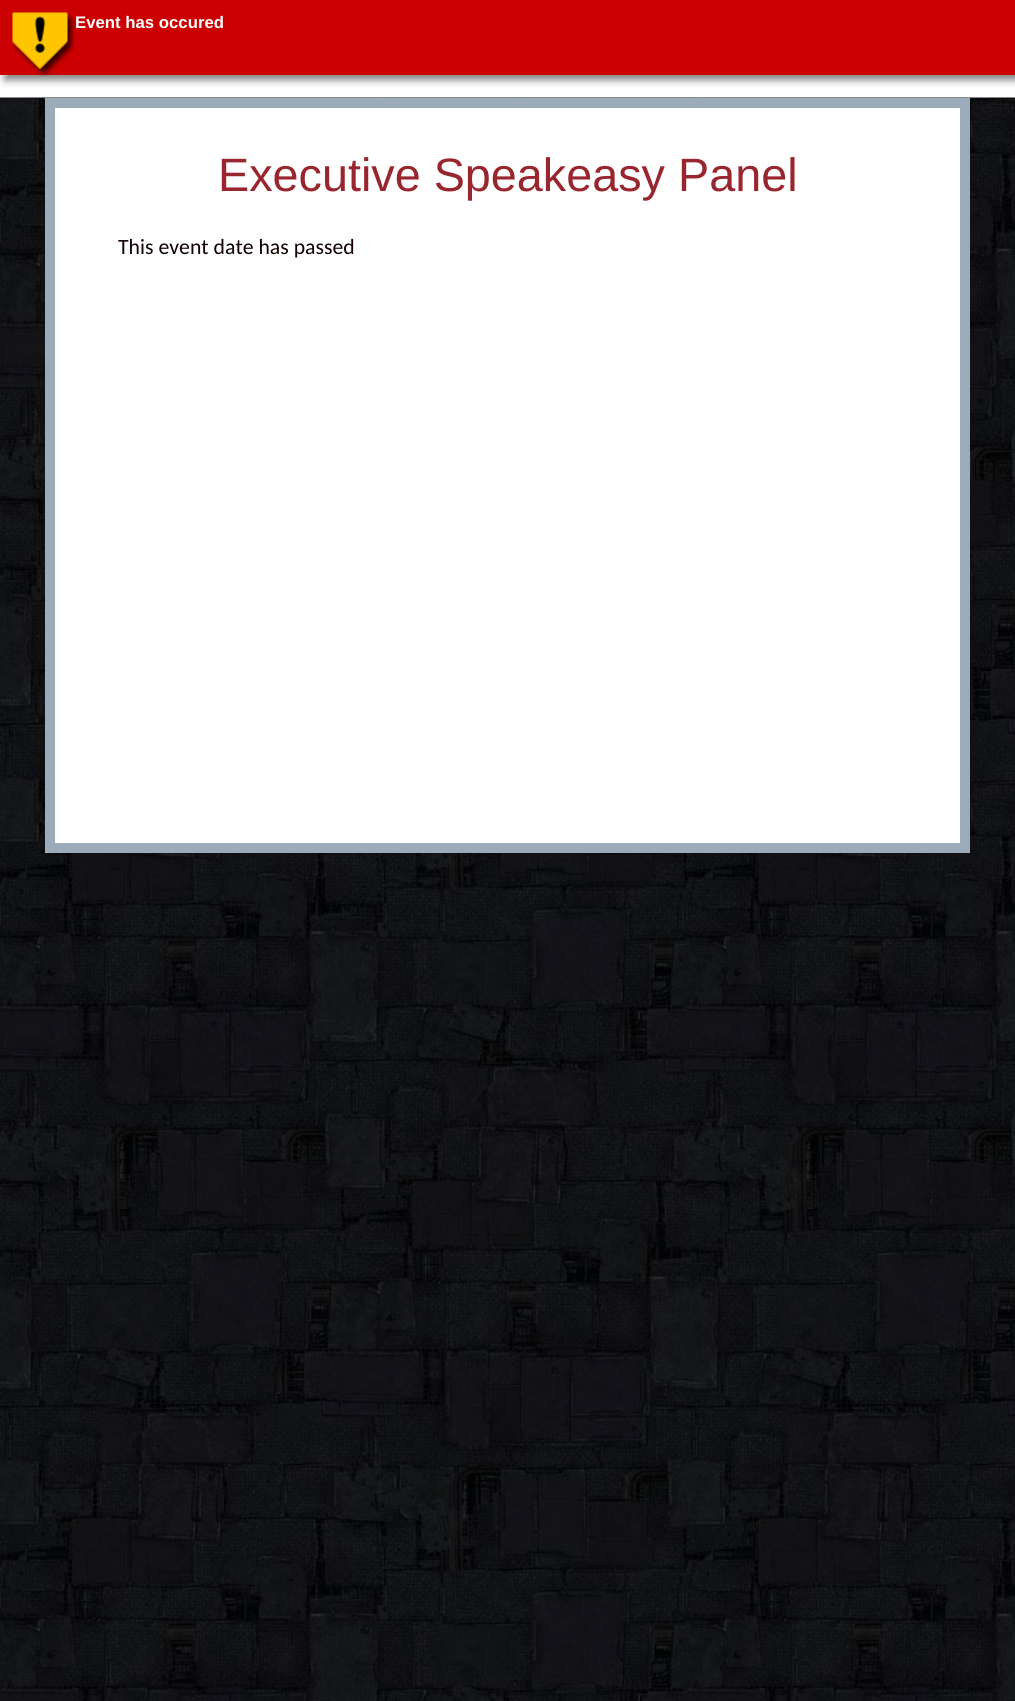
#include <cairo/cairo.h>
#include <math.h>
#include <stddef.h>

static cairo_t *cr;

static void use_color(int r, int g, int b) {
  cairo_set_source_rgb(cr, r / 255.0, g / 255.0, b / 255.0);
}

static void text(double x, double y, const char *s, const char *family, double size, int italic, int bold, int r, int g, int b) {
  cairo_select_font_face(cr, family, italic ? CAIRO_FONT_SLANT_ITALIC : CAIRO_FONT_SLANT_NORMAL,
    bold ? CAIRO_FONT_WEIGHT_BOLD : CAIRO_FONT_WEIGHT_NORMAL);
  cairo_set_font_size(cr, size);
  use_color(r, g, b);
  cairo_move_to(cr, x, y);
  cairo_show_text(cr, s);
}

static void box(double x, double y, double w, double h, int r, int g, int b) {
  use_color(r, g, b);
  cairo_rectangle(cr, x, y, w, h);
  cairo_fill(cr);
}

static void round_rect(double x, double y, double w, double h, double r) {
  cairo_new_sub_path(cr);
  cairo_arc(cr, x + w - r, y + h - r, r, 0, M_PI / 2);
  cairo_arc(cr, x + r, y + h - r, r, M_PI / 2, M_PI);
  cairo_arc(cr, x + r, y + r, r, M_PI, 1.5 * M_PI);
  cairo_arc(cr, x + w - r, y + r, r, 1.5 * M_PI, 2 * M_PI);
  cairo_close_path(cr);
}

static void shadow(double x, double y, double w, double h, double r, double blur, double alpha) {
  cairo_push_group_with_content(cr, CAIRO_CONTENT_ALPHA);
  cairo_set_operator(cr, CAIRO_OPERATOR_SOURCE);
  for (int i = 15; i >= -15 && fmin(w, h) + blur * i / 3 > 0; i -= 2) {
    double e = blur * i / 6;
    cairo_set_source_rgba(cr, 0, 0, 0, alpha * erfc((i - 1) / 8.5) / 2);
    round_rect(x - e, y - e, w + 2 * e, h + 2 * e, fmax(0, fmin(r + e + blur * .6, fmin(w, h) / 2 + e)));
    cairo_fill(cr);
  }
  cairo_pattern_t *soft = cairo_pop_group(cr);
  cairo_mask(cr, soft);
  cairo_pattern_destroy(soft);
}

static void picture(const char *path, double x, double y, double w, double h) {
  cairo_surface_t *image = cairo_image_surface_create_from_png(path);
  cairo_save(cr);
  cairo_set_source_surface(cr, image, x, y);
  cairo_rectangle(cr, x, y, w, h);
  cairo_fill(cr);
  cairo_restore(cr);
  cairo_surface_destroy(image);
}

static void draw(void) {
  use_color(255, 255, 255);
  cairo_paint(cr);
  use_color(0, 0, 0);
  shadow(5, 5, 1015, 75, 0, 4, 0.5);
  box(0, 0, 1015, 75, 204, 0, 0);
  picture("img_01.png", 12, 12, 63, 64);
  picture("img_02.png", 0, 97, 1015, 1604);
  use_color(255, 255, 255);
  cairo_rectangle(cr, 50, 103, 915, 745);
  cairo_fill_preserve(cr);
  use_color(155, 171, 186);
  cairo_set_line_width(cr, 10);
  cairo_stroke(cr);
  text(75, 28, "Event has occured", "Liberation Sans", 16.75, 0, 1, 255, 255, 255);
  text(218, 191, "Executive Speakeasy Panel", "Liberation Sans", 46.75, 0, 0, 153, 37, 46);
  text(118, 254, "This event date has passed", "Carlito", 21.75, 0, 0, 18, 1, 2);
}

int main(void) {
  cairo_surface_t *surface = cairo_image_surface_create(CAIRO_FORMAT_RGB24, 1015, 1701);
  cr = cairo_create(surface);
  cairo_font_options_t *options = cairo_font_options_create();
  cairo_font_options_set_hint_metrics(options, CAIRO_HINT_METRICS_OFF);
  cairo_font_options_set_hint_style(options, CAIRO_HINT_STYLE_NONE);
  cairo_set_font_options(cr, options);
  cairo_set_miter_limit(cr, 4);
  draw();
  cairo_surface_write_to_png(surface, "out.png");
  cairo_font_options_destroy(options);
  cairo_destroy(cr);
  cairo_surface_destroy(surface);
  return 0;
}
